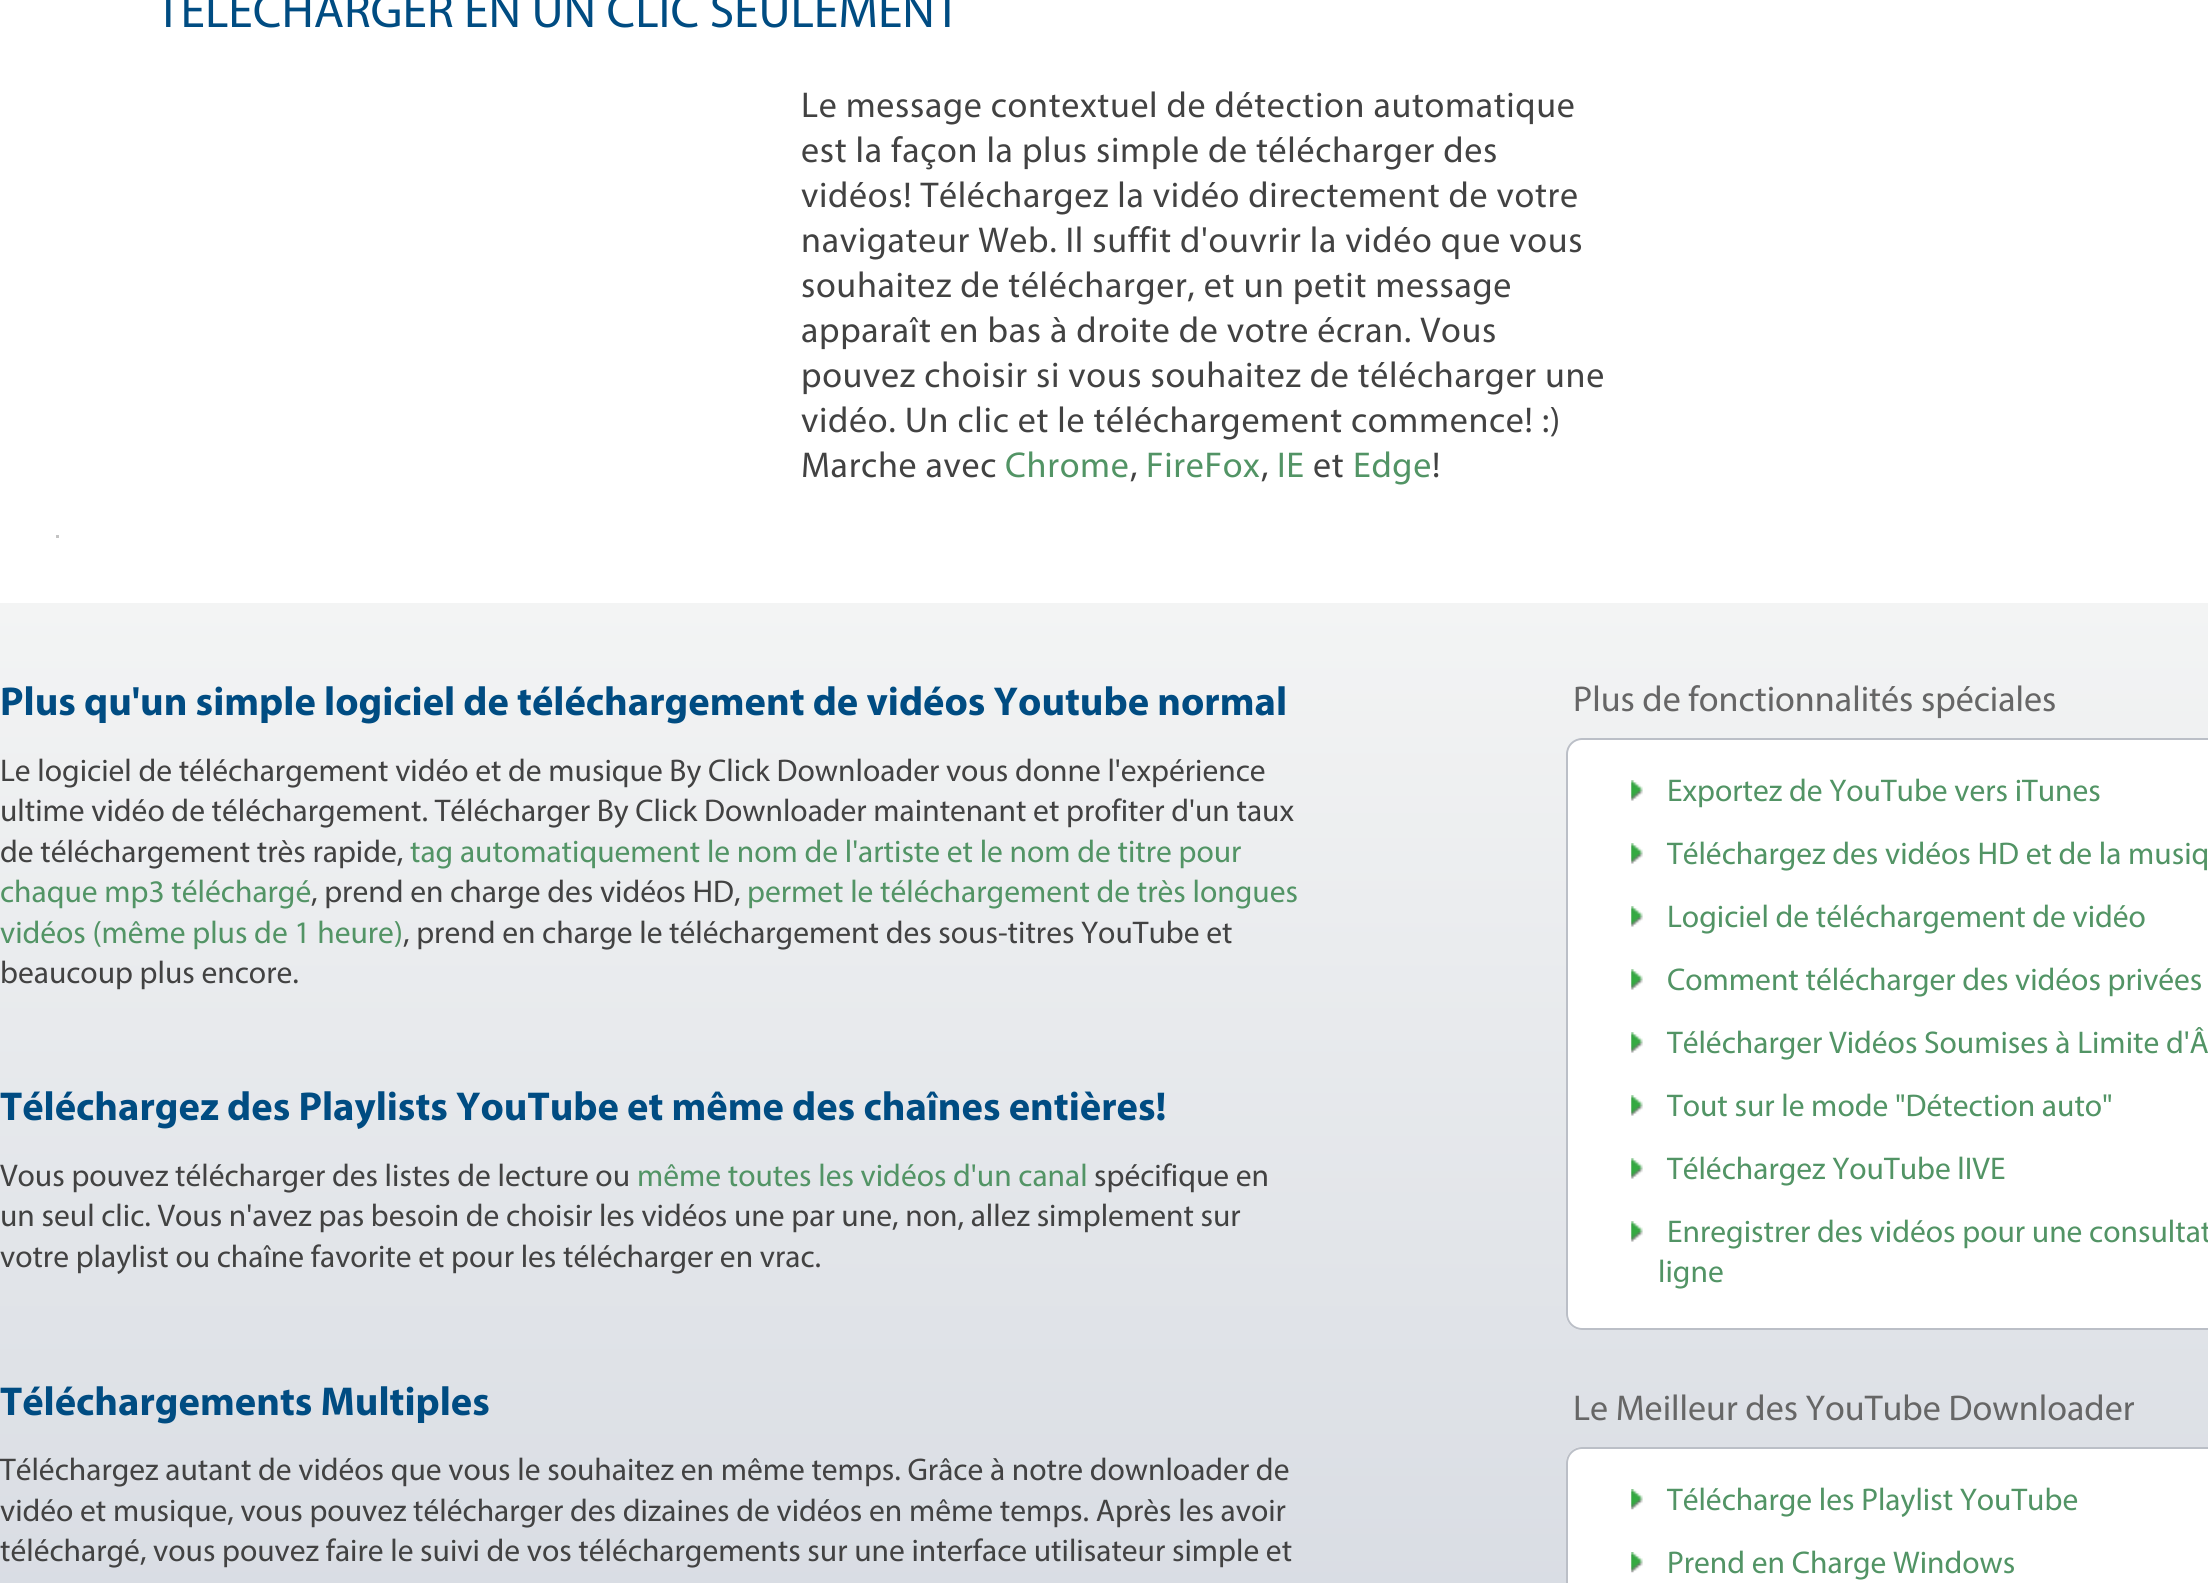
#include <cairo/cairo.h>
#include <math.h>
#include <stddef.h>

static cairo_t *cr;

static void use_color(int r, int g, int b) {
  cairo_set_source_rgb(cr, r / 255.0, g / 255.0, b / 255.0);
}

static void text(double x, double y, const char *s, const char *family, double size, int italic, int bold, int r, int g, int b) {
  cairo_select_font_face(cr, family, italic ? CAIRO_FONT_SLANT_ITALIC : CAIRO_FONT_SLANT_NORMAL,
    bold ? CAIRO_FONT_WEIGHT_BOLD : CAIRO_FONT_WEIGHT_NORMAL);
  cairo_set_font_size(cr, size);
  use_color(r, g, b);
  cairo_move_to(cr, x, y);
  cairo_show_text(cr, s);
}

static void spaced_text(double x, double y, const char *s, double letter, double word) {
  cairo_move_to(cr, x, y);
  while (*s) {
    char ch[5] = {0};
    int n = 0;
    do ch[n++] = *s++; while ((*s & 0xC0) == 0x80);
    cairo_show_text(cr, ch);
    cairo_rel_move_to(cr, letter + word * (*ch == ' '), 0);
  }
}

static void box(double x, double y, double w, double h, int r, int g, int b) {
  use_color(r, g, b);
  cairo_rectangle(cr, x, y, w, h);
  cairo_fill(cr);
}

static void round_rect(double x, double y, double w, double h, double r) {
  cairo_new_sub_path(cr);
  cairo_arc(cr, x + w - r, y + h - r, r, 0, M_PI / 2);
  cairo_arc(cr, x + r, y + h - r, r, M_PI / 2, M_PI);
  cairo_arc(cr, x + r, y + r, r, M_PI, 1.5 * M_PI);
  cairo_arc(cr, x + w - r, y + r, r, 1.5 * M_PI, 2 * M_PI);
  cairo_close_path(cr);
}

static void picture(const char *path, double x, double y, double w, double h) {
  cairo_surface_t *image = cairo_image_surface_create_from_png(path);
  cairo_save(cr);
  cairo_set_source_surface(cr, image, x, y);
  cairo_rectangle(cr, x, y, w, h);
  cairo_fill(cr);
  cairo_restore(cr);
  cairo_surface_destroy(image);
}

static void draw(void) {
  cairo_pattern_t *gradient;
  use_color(255, 255, 255);
  cairo_paint(cr);
  box(56, 535, 3, 3, 195, 195, 195);
  gradient = cairo_pattern_create_linear(1105, 603, 1105, 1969);
  cairo_pattern_add_color_stop_rgba(gradient, 0, 0.953, 0.957, 0.957, 1);
  cairo_pattern_add_color_stop_rgba(gradient, 1, 0.812, 0.831, 0.867, 1);
  cairo_set_source(cr, gradient);
  cairo_pattern_destroy(gradient);
  cairo_rectangle(cr, 0, 603, 2208, 980);
  cairo_fill(cr);
  use_color(255, 255, 255);
  cairo_new_path(cr);
  cairo_move_to(cr, 1582, 738);
  cairo_line_to(cr, 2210, 738);
  cairo_line_to(cr, 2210, 1330);
  cairo_line_to(cr, 1582, 1330);
  cairo_curve_to(cr, 1573, 1330, 1566, 1323, 1566, 1314);
  cairo_line_to(cr, 1566, 754);
  cairo_curve_to(cr, 1566, 745, 1573, 738, 1582, 738);
  cairo_close_path(cr);
  cairo_fill(cr);
  round_rect(1567, 739, 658, 590, 15);
  use_color(187, 191, 199);
  cairo_stroke(cr);
  picture("img_01.png", 1631, 780, 12, 21);
  picture("img_01.png", 1631, 843, 12, 21);
  picture("img_01.png", 1631, 906, 12, 21);
  picture("img_01.png", 1631, 969, 12, 21);
  picture("img_01.png", 1631, 1032, 12, 21);
  picture("img_01.png", 1631, 1095, 12, 21);
  picture("img_01.png", 1631, 1158, 12, 21);
  picture("img_01.png", 1631, 1221, 12, 21);
  use_color(255, 255, 255);
  cairo_new_path(cr);
  cairo_move_to(cr, 1582, 1447);
  cairo_line_to(cr, 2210, 1447);
  cairo_line_to(cr, 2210, 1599);
  cairo_line_to(cr, 1582, 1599);
  cairo_curve_to(cr, 1573, 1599, 1566, 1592, 1566, 1583);
  cairo_line_to(cr, 1566, 1463);
  cairo_curve_to(cr, 1566, 1454, 1573, 1447, 1582, 1447);
  cairo_close_path(cr);
  cairo_fill(cr);
  round_rect(1567, 1448, 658, 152, 15);
  use_color(187, 191, 199);
  cairo_stroke(cr);
  picture("img_02.png", 1631, 1489, 12, 21);
  picture("img_02.png", 1631, 1552, 12, 21);
  text(156, 27, "TELECHARGER EN UN CLIC SEULEMENT", "Myriad", 49.5, 0, 0, 0, 76, 130);
  cairo_set_font_size(cr, 36);
  use_color(66, 66, 66);
  spaced_text(801, 117, "Le message contextuel de détection automatique", 0.67, 0);
  spaced_text(801, 162, "est la façon la plus simple de télécharger des", 0.67, 0);
  spaced_text(801, 207, "vidéos! Téléchargez la vidéo directement de votre", 0.67, 0);
  spaced_text(801, 252, "navigateur Web. Il suffit d'ouvrir la vidéo que vous", 0.67, 0);
  spaced_text(801, 297, "souhaitez de télécharger, et un petit message", 0.67, 0);
  spaced_text(801, 342, "apparaît en bas à droite de votre écran. Vous", 0.67, 0);
  spaced_text(801, 387, "pouvez choisir si vous souhaitez de télécharger une", 0.67, 0);
  spaced_text(801, 432, "vidéo. Un clic et le téléchargement commence! :)", 0.67, 0);
  spaced_text(801, 477, "Marche avec", 0.67, 0);
  use_color(82, 148, 101);
  spaced_text(1005, 477, "Chrome", 0.67, 0);
  use_color(66, 66, 66);
  spaced_text(1130, 477, ",", 0.67, 0);
  use_color(82, 148, 101);
  spaced_text(1146, 477, "FireFox", 0.67, 0);
  use_color(66, 66, 66);
  spaced_text(1261, 477, ",", 0.67, 0);
  use_color(82, 148, 101);
  spaced_text(1277, 477, "IE", 0.67, 0);
  use_color(66, 66, 66);
  spaced_text(1313, 477, "et", 0.67, 0);
  use_color(82, 148, 101);
  spaced_text(1353, 477, "Edge", 0.67, 0);
  use_color(66, 66, 66);
  spaced_text(1432, 477, "!", 0.67, 0);
  text(0, 715, "Plus qu'un simple logiciel de téléchargement de vidéos Youtube normal", "Myriad", 40.5, 0, 1, 0, 76, 130);
  text(0, 781, "Le logiciel de téléchargement vidéo et de musique By Click Downloader vous donne l'expérience", "Myriad", 31.5, 0, 0, 66, 66, 66);
  text(0, 821, "ultime vidéo de téléchargement. Télécharger By Click Downloader maintenant et profiter d'un taux", "Myriad", 31.5, 0, 0, 66, 66, 66);
  text(0, 862, "de téléchargement très rapide,", "Myriad", 31.5, 0, 0, 66, 66, 66);
  text(410, 862, "tag automatiquement le nom de l'artiste et le nom de titre pour", "Myriad", 31.5, 0, 0, 82, 148, 101);
  text(0, 902, "chaque mp3 téléchargé", "Myriad", 31.5, 0, 0, 82, 148, 101);
  text(311, 902, ", prend en charge des vidéos HD,", "Myriad", 31.5, 0, 0, 66, 66, 66);
  text(747, 902, "permet le téléchargement de très longues", "Myriad", 31.5, 0, 0, 82, 148, 101);
  text(0, 943, "vidéos (même plus de 1 heure)", "Myriad", 31.5, 0, 0, 82, 148, 101);
  text(403, 943, ", prend en charge le téléchargement des sous-titres YouTube et", "Myriad", 31.5, 0, 0, 66, 66, 66);
  text(0, 983, "beaucoup plus encore.", "Myriad", 31.5, 0, 0, 66, 66, 66);
  text(0, 1120, "Téléchargez des Playlists YouTube et même des chaînes entières!", "Myriad", 40.5, 0, 1, 0, 76, 130);
  text(0, 1186, "Vous pouvez télécharger des listes de lecture ou", "Myriad", 31.5, 0, 0, 66, 66, 66);
  text(637, 1186, "même toutes les vidéos d'un canal", "Myriad", 31.5, 0, 0, 82, 148, 101);
  text(1094, 1186, "spécifique en", "Myriad", 31.5, 0, 0, 66, 66, 66);
  text(0, 1226, "un seul clic. Vous n'avez pas besoin de choisir les vidéos une par une, non, allez simplement sur", "Myriad", 31.5, 0, 0, 66, 66, 66);
  text(0, 1267, "votre playlist ou chaîne favorite et pour les télécharger en vrac.", "Myriad", 31.5, 0, 0, 66, 66, 66);
  text(0, 1415, "Téléchargements Multiples", "Myriad", 40.5, 0, 1, 0, 76, 130);
  text(0, 1480, "Téléchargez autant de vidéos que vous le souhaitez en même temps. Grâce à notre downloader de", "Myriad", 31.5, 0, 0, 66, 66, 66);
  text(0, 1521, "vidéo et musique, vous pouvez télécharger des dizaines de vidéos en même temps. Après les avoir", "Myriad", 31.5, 0, 0, 66, 66, 66);
  text(0, 1561, "téléchargé, vous pouvez faire le suivi de vos téléchargements sur une interface utilisateur simple et", "Myriad", 31.5, 0, 0, 66, 66, 66);
  text(1573, 711, "Plus de fonctionnalités spéciales", "Myriad", 36, 0, 0, 102, 102, 102);
  text(1667, 801, "Exportez de YouTube vers iTunes", "Myriad", 31.5, 0, 0, 82, 148, 101);
  text(1667, 864, "Téléchargez des vidéos HD et de la musiq", "Myriad", 31.5, 0, 0, 82, 148, 101);
  text(1667, 927, "Logiciel de téléchargement de vidéo", "Myriad", 31.5, 0, 0, 82, 148, 101);
  text(1667, 990, "Comment télécharger des vidéos privées", "Myriad", 31.5, 0, 0, 82, 148, 101);
  text(1667, 1053, "Télécharger Vidéos Soumises à Limite d'Â", "Myriad", 31.5, 0, 0, 82, 148, 101);
  text(1667, 1116, "Tout sur le mode \"Détection auto\"", "Myriad", 31.5, 0, 0, 82, 148, 101);
  text(1667, 1179, "Téléchargez YouTube lIVE", "Myriad", 31.5, 0, 0, 82, 148, 101);
  text(1667, 1242, "Enregistrer des vidéos pour une consultat", "Myriad", 31.5, 0, 0, 82, 148, 101);
  text(1658, 1282, "ligne", "Myriad", 31.5, 0, 0, 82, 148, 101);
  text(1573, 1420, "Le Meilleur des YouTube Downloader", "Myriad", 36, 0, 0, 102, 102, 102);
  text(1667, 1510, "Télécharge les Playlist YouTube", "Myriad", 31.5, 0, 0, 82, 148, 101);
  text(1667, 1573, "Prend en Charge Windows", "Myriad", 31.5, 0, 0, 82, 148, 101);
}

int main(void) {
  cairo_surface_t *surface = cairo_image_surface_create(CAIRO_FORMAT_RGB24, 2208, 1583);
  cr = cairo_create(surface);
  cairo_font_options_t *options = cairo_font_options_create();
  cairo_font_options_set_hint_metrics(options, CAIRO_HINT_METRICS_OFF);
  cairo_font_options_set_hint_style(options, CAIRO_HINT_STYLE_NONE);
  cairo_set_font_options(cr, options);
  cairo_set_miter_limit(cr, 4);
  draw();
  cairo_surface_write_to_png(surface, "out.png");
  cairo_font_options_destroy(options);
  cairo_destroy(cr);
  cairo_surface_destroy(surface);
  return 0;
}
